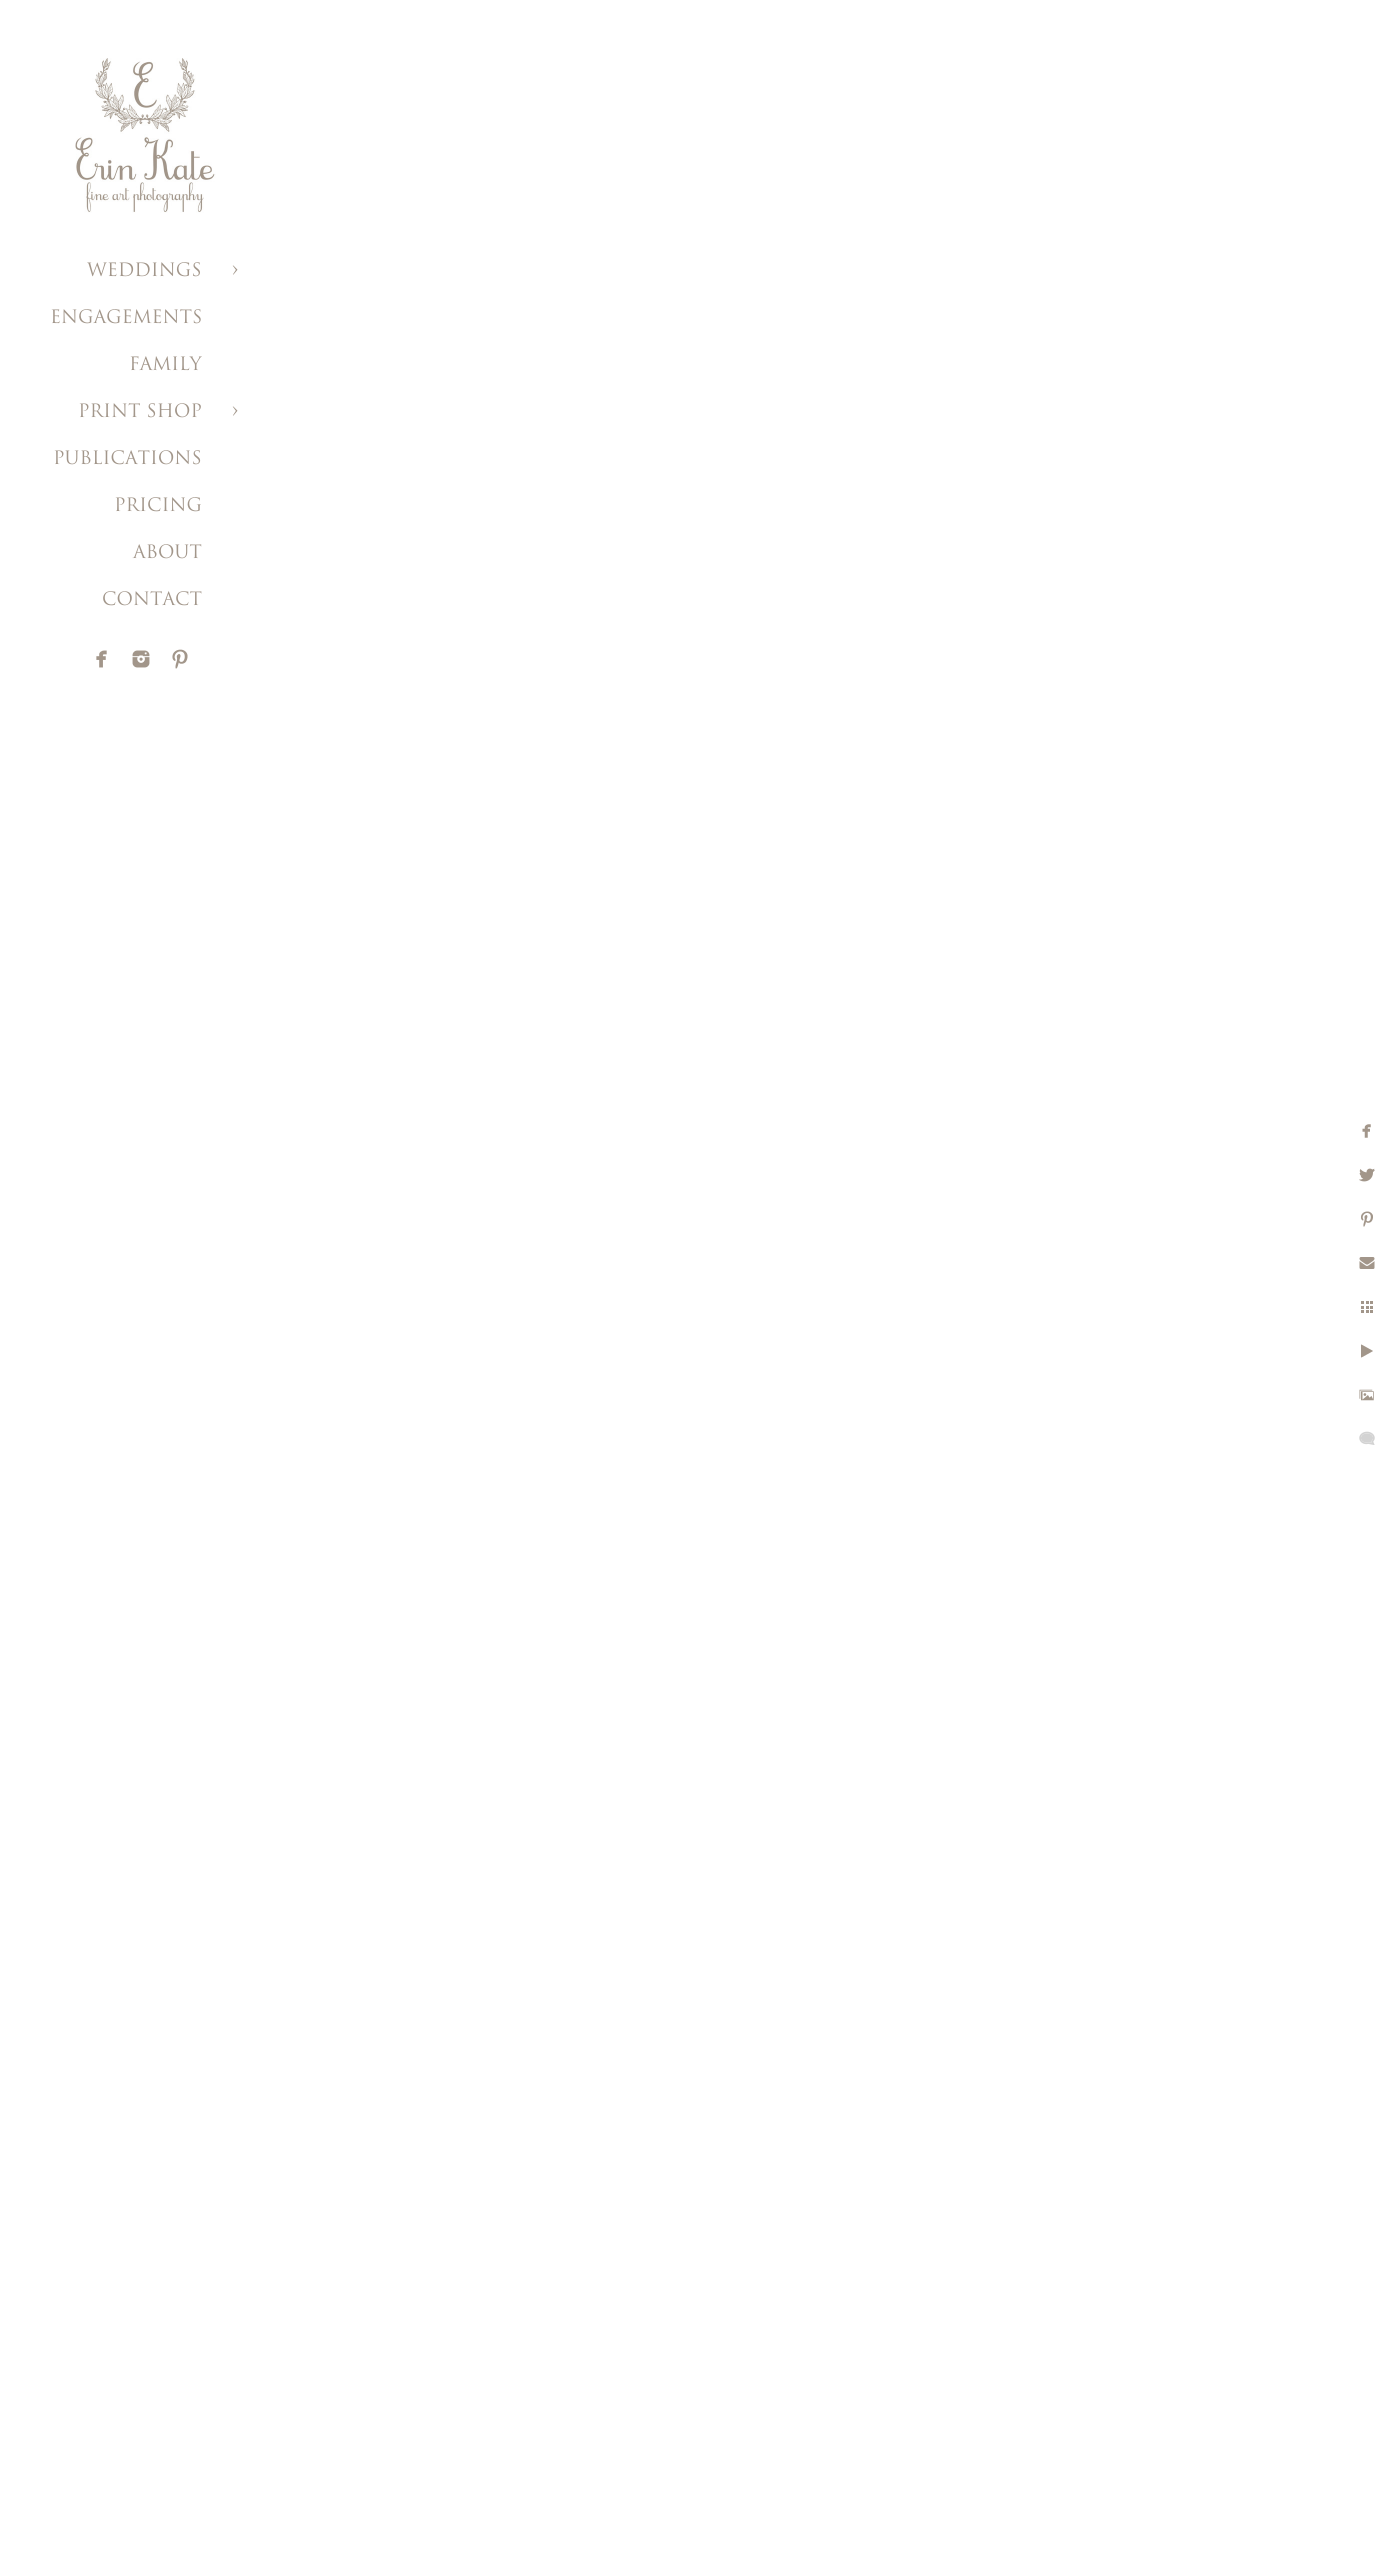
#include <cairo/cairo.h>
#include <math.h>
#include <stddef.h>

static cairo_t *cr;

static void use_color(int r, int g, int b) {
  cairo_set_source_rgb(cr, r / 255.0, g / 255.0, b / 255.0);
}

static void picture(const char *path, double x, double y, double w, double h) {
  cairo_surface_t *image = cairo_image_surface_create_from_png(path);
  cairo_save(cr);
  cairo_set_source_surface(cr, image, x, y);
  cairo_rectangle(cr, x, y, w, h);
  cairo_fill(cr);
  cairo_restore(cr);
  cairo_surface_destroy(image);
}

static void draw(void) {
  use_color(255, 255, 255);
  cairo_paint(cr);
  picture("img_01.png", 75, 58, 141, 155);
  picture("img_02.png", 87, 262, 113, 15);
  picture("img_03.png", 232, 265, 6, 10);
  picture("img_04.png", 51, 309, 150, 15);
  picture("img_05.png", 130, 356, 72, 15);
  picture("img_06.png", 79, 403, 122, 15);
  picture("img_03.png", 232, 406, 6, 10);
  picture("img_07.png", 54, 450, 147, 15);
  picture("img_08.png", 115, 497, 86, 15);
  picture("img_09.png", 132, 544, 70, 15);
  picture("img_10.png", 103, 591, 99, 15);
  picture("img_11.png", 96, 650, 11, 18);
  picture("img_12.png", 132, 650, 18, 18);
  picture("img_13.png", 172, 649, 16, 20);
  picture("img_14.png", 1362, 1124, 9, 14);
  picture("img_15.png", 1359, 1168, 16, 14);
  picture("img_16.png", 1361, 1211, 12, 16);
  picture("img_17.png", 1359, 1257, 16, 12);
  picture("img_18.png", 1361, 1301, 12, 12);
  picture("img_19.png", 1361, 1344, 12, 14);
  picture("img_20.png", 1359, 1389, 15, 12);
  picture("img_21.png", 1359, 1431, 16, 14);
}

int main(void) {
  cairo_surface_t *surface = cairo_image_surface_create(CAIRO_FORMAT_RGB24, 1394, 2549);
  cr = cairo_create(surface);
  cairo_font_options_t *options = cairo_font_options_create();
  cairo_font_options_set_hint_metrics(options, CAIRO_HINT_METRICS_OFF);
  cairo_font_options_set_hint_style(options, CAIRO_HINT_STYLE_NONE);
  cairo_set_font_options(cr, options);
  cairo_set_miter_limit(cr, 4);
  draw();
  cairo_surface_write_to_png(surface, "out.png");
  cairo_font_options_destroy(options);
  cairo_destroy(cr);
  cairo_surface_destroy(surface);
  return 0;
}
